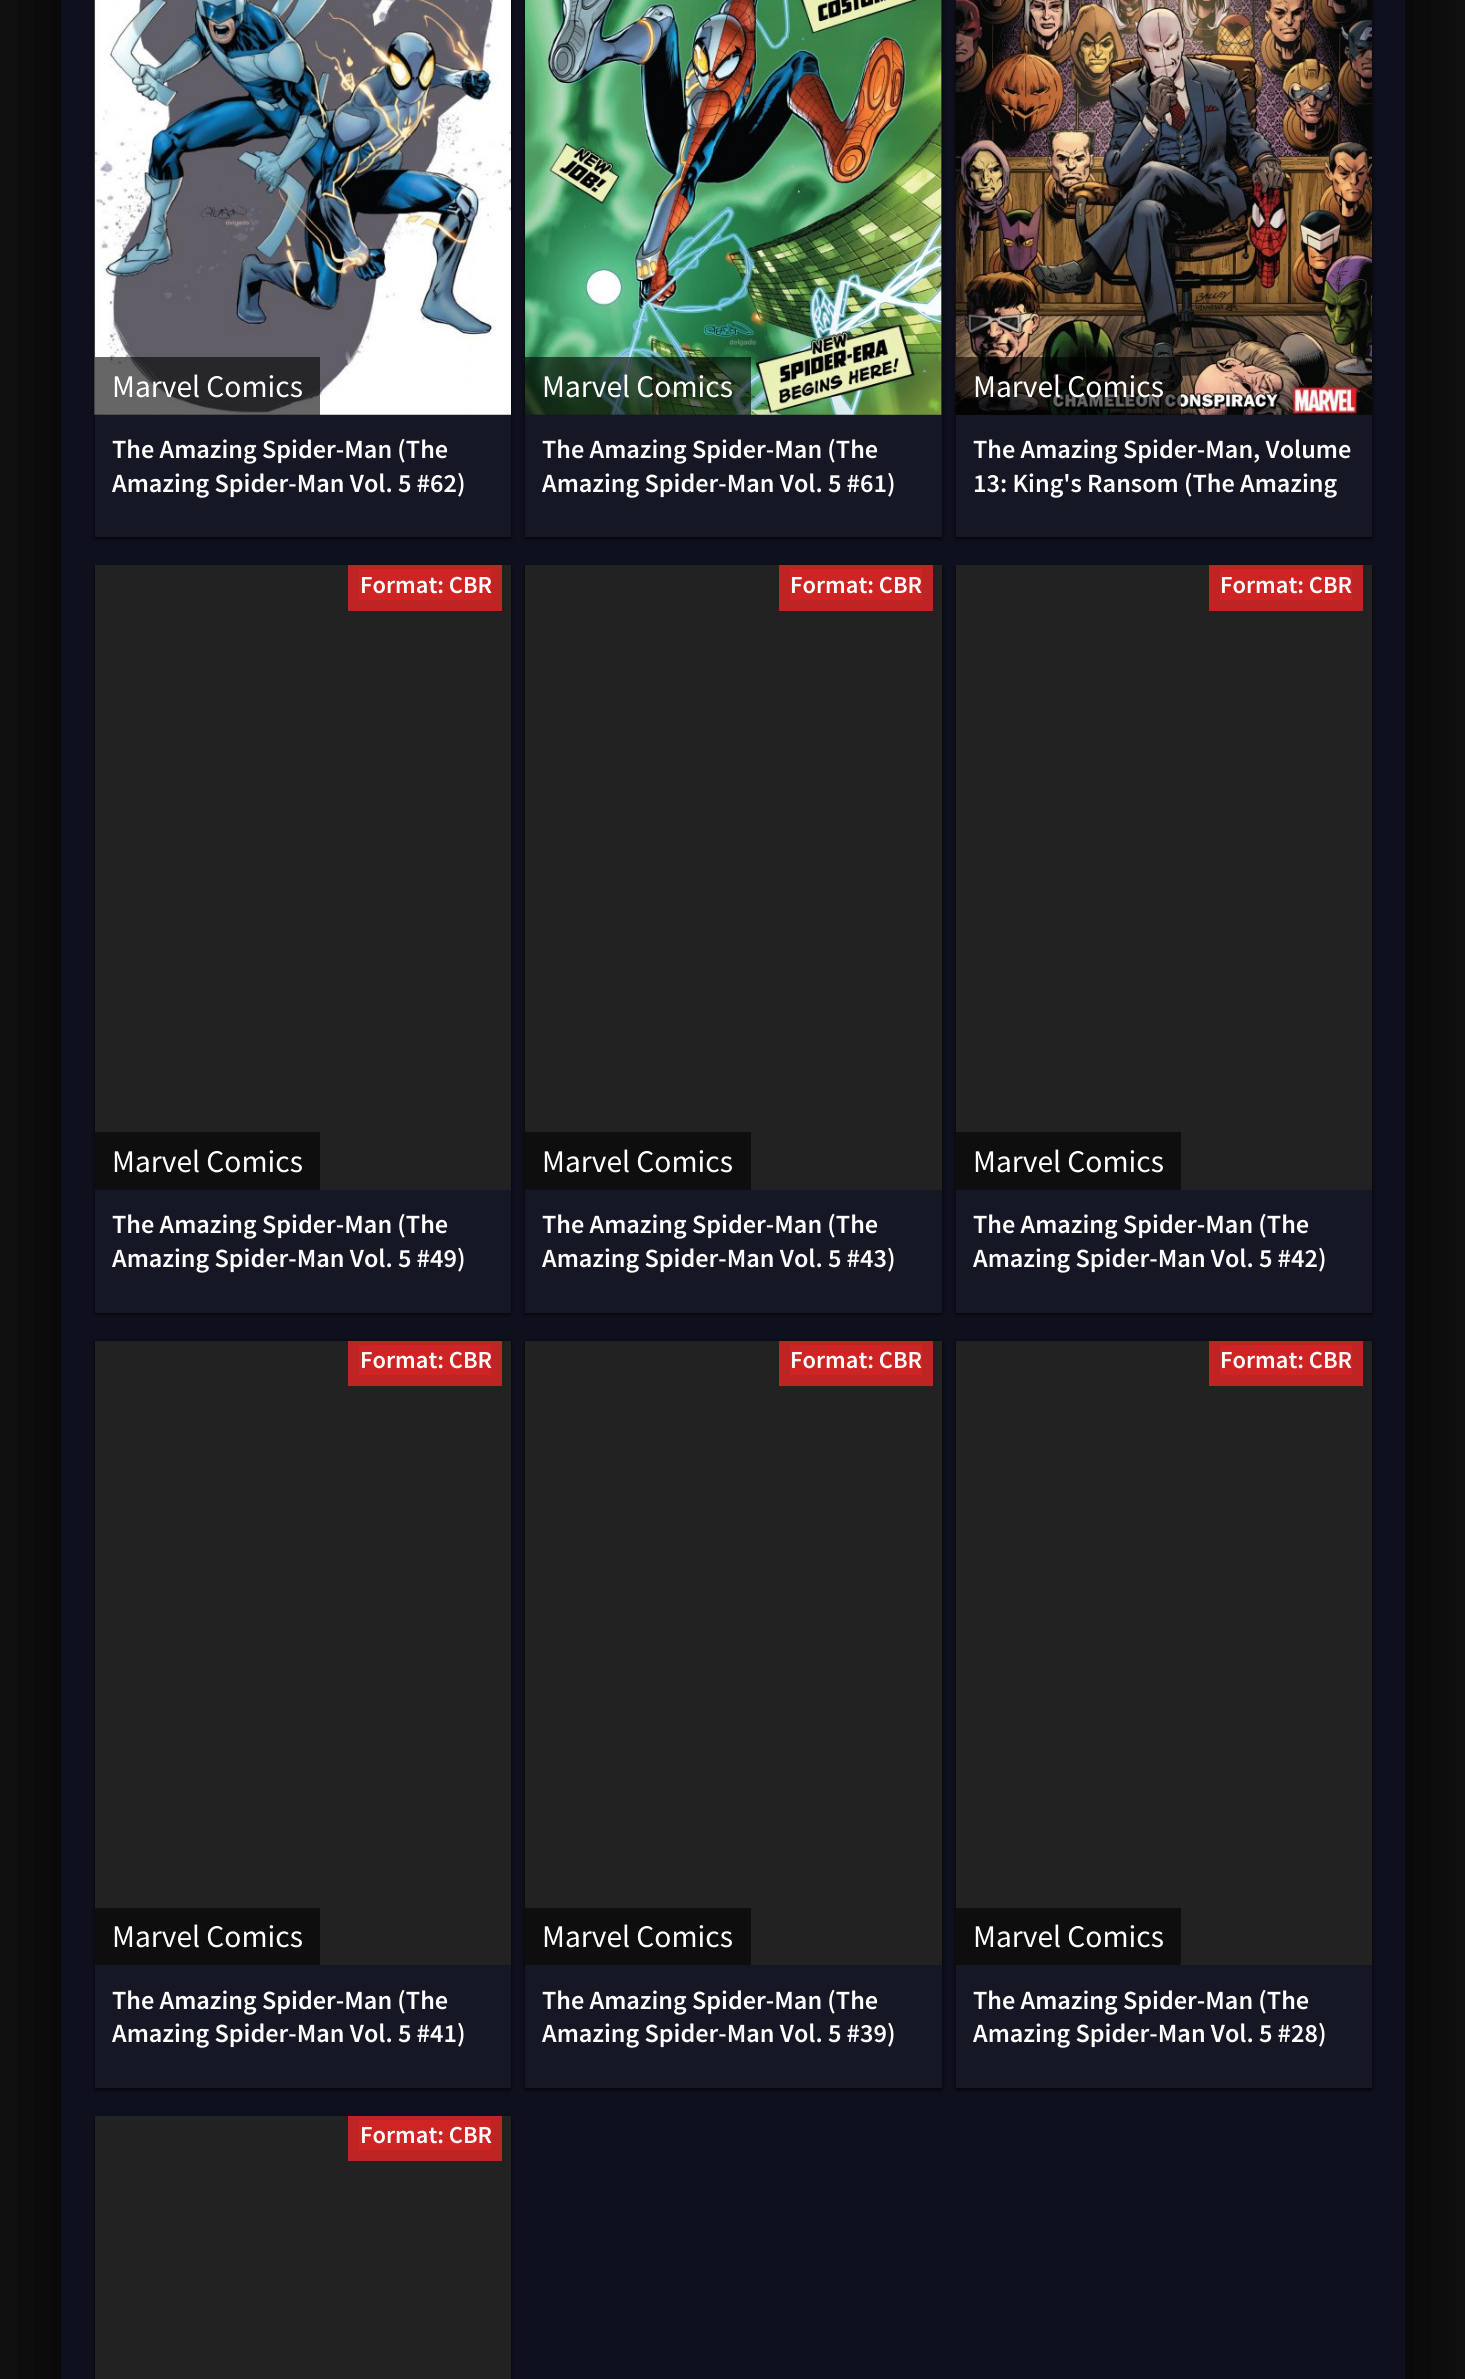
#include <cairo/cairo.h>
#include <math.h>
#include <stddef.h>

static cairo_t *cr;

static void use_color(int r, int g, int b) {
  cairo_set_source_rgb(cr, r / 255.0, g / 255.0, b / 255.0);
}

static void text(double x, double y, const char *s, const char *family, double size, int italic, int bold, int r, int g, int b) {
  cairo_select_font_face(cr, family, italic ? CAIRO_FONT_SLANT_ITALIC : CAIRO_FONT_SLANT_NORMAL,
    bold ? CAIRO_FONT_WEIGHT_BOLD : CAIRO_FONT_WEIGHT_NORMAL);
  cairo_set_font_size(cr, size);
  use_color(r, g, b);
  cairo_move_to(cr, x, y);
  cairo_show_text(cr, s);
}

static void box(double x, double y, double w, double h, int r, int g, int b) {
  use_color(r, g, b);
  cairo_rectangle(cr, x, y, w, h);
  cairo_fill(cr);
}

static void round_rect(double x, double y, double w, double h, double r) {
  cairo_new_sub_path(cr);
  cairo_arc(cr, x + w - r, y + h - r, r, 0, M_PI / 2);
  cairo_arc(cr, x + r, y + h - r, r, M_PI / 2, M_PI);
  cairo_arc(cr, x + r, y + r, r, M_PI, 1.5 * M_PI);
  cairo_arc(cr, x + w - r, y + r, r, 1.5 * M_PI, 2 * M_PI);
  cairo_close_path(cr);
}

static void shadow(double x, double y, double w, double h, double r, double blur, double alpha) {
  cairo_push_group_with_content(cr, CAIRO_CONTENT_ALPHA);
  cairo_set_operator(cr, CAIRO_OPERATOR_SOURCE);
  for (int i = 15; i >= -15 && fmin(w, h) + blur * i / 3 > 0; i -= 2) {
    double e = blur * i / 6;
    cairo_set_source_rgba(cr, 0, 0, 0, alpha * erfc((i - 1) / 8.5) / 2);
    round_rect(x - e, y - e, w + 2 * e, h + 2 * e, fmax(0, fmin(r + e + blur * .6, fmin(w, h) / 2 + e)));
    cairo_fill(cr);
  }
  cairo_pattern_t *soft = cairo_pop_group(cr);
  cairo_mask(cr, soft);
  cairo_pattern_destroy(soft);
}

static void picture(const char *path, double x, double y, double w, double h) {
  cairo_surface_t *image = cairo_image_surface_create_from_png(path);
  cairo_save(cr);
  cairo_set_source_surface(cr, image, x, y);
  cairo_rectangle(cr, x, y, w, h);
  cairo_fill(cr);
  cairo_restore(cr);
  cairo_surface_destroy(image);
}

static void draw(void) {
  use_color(17, 17, 17);
  cairo_paint(cr);
  use_color(0, 0, 0);
  shadow(61, -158, 1344, 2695, 0, 52.5, 0.9);
  box(61, 0, 1344, 2379, 15, 16, 29);
  use_color(0, 0, 0);
  shadow(95, -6, 416, 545, 0, 2, 0.85);
  box(95, 414, 416, 123, 22, 23, 37);
  picture("img_01.png", 94, 0, 417, 415);
  cairo_set_source_rgba(cr, 0, 0, 0, 0.6);
  cairo_rectangle(cr, 95, 357, 225, 58);
  cairo_fill(cr);
  use_color(0, 0, 0);
  shadow(525, -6, 417, 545, 0, 2, 0.85);
  box(525, 415, 417, 122, 22, 23, 37);
  box(525, 0, 417, 415, 34, 34, 34);
  picture("img_02.png", 525, 0, 417, 415);
  cairo_set_source_rgba(cr, 0, 0, 0, 0.6);
  cairo_rectangle(cr, 525, 357, 226, 58);
  cairo_fill(cr);
  use_color(0, 0, 0);
  shadow(956, -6, 416, 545, 0, 2, 0.85);
  box(956, 414, 416, 123, 22, 23, 37);
  picture("img_03.png", 955, 0, 417, 415);
  cairo_set_source_rgba(cr, 0, 0, 0, 0.6);
  cairo_rectangle(cr, 956, 357, 225, 58);
  cairo_fill(cr);
  use_color(0, 0, 0);
  shadow(95, 567, 416, 747, 0, 2, 0.85);
  box(95, 1190, 416, 123, 22, 23, 37);
  box(95, 565, 416, 625, 34, 34, 34);
  box(359, 569, 132, 31, 206, 36, 36);
  cairo_save(cr);
  cairo_rectangle(cr, 95, 565, 416, 625);
  cairo_clip(cr);
  cairo_rectangle(cr, 353.5, 563.5, 143, 42);
  use_color(190, 36, 36);
  cairo_set_line_width(cr, 11);
  cairo_stroke(cr);
  cairo_restore(cr);
  box(95, 1132, 225, 58, 14, 14, 14);
  use_color(0, 0, 0);
  shadow(525, 567, 417, 747, 0, 2, 0.85);
  box(525, 1190, 417, 123, 22, 23, 37);
  box(525, 565, 417, 625, 34, 34, 34);
  box(790, 569, 132, 31, 206, 36, 36);
  cairo_save(cr);
  cairo_rectangle(cr, 525, 565, 417, 625);
  cairo_clip(cr);
  cairo_rectangle(cr, 784.5, 563.5, 143, 42);
  use_color(190, 36, 36);
  cairo_set_line_width(cr, 11);
  cairo_stroke(cr);
  cairo_restore(cr);
  box(525, 1132, 226, 58, 14, 14, 14);
  use_color(0, 0, 0);
  shadow(956, 567, 416, 747, 0, 2, 0.85);
  box(956, 1190, 416, 123, 22, 23, 37);
  box(956, 565, 416, 625, 34, 34, 34);
  box(1220, 569, 132, 31, 206, 36, 36);
  cairo_save(cr);
  cairo_rectangle(cr, 956, 565, 416, 625);
  cairo_clip(cr);
  cairo_rectangle(cr, 1214.5, 563.5, 143, 42);
  use_color(190, 36, 36);
  cairo_set_line_width(cr, 11);
  cairo_stroke(cr);
  cairo_restore(cr);
  box(956, 1132, 225, 58, 14, 14, 14);
  use_color(0, 0, 0);
  shadow(95, 1342, 416, 748, 0, 2, 0.85);
  box(95, 1965, 416, 123, 22, 23, 37);
  box(95, 1341, 416, 624, 34, 34, 34);
  box(359, 1345, 132, 30, 206, 36, 36);
  cairo_save(cr);
  cairo_rectangle(cr, 95, 1341, 416, 624);
  cairo_clip(cr);
  cairo_rectangle(cr, 353.5, 1339.5, 143, 41);
  use_color(190, 36, 36);
  cairo_set_line_width(cr, 11);
  cairo_stroke(cr);
  cairo_restore(cr);
  box(95, 1908, 225, 57, 14, 14, 14);
  use_color(0, 0, 0);
  shadow(525, 1342, 417, 748, 0, 2, 0.85);
  box(525, 1965, 417, 123, 22, 23, 37);
  box(525, 1341, 417, 624, 34, 34, 34);
  box(790, 1345, 132, 30, 206, 36, 36);
  cairo_save(cr);
  cairo_rectangle(cr, 525, 1341, 417, 624);
  cairo_clip(cr);
  cairo_rectangle(cr, 784.5, 1339.5, 143, 41);
  use_color(190, 36, 36);
  cairo_set_line_width(cr, 11);
  cairo_stroke(cr);
  cairo_restore(cr);
  box(525, 1908, 226, 57, 14, 14, 14);
  use_color(0, 0, 0);
  shadow(956, 1342, 416, 748, 0, 2, 0.85);
  box(956, 1965, 416, 123, 22, 23, 37);
  box(956, 1341, 416, 624, 34, 34, 34);
  box(1220, 1345, 132, 30, 206, 36, 36);
  cairo_save(cr);
  cairo_rectangle(cr, 956, 1341, 416, 624);
  cairo_clip(cr);
  cairo_rectangle(cr, 1214.5, 1339.5, 143, 41);
  use_color(190, 36, 36);
  cairo_set_line_width(cr, 11);
  cairo_stroke(cr);
  cairo_restore(cr);
  box(956, 1908, 225, 57, 14, 14, 14);
  use_color(0, 0, 0);
  shadow(95, 2118, 416, 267, 0, 2, 0.85);
  box(95, 2116, 416, 263, 34, 34, 34);
  box(359, 2120, 132, 30, 206, 36, 36);
  cairo_save(cr);
  cairo_rectangle(cr, 95, 2116, 416, 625);
  cairo_clip(cr);
  cairo_rectangle(cr, 353.5, 2114.5, 143, 41);
  use_color(190, 36, 36);
  cairo_set_line_width(cr, 11);
  cairo_stroke(cr);
  cairo_restore(cr);
  text(112, 397, "Marvel Comics", "Source Sans Pro", 31.5, 0, 0, 255, 255, 255);
  text(112, 458, "The Amazing Spider-Man (The", "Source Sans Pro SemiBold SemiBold", 26.25, 0, 0, 255, 255, 255);
  text(112, 492, "Amazing Spider-Man Vol. 5 #62)", "Source Sans Pro SemiBold SemiBold", 26.25, 0, 0, 255, 255, 255);
  text(542, 397, "Marvel Comics", "Source Sans Pro", 31.5, 0, 0, 255, 255, 255);
  text(542, 458, "The Amazing Spider-Man (The", "Source Sans Pro SemiBold SemiBold", 26.25, 0, 0, 255, 255, 255);
  text(542, 492, "Amazing Spider-Man Vol. 5 #61)", "Source Sans Pro SemiBold SemiBold", 26.25, 0, 0, 255, 255, 255);
  text(973, 397, "Marvel Comics", "Source Sans Pro", 31.5, 0, 0, 255, 255, 255);
  text(973, 458, "The Amazing Spider-Man, Volume", "Source Sans Pro SemiBold SemiBold", 26.25, 0, 0, 255, 255, 255);
  text(973, 492, "13: King's Ransom (The Amazing", "Source Sans Pro SemiBold SemiBold", 26.25, 0, 0, 255, 255, 255);
  text(360, 593, "Format: CBR", "Source Sans Pro SemiBold SemiBold", 24.5, 0, 0, 255, 255, 255);
  text(112, 1172, "Marvel Comics", "Source Sans Pro", 31.5, 0, 0, 255, 255, 255);
  text(112, 1233, "The Amazing Spider-Man (The", "Source Sans Pro SemiBold SemiBold", 26.25, 0, 0, 255, 255, 255);
  text(112, 1267, "Amazing Spider-Man Vol. 5 #49)", "Source Sans Pro SemiBold SemiBold", 26.25, 0, 0, 255, 255, 255);
  text(790, 593, "Format: CBR", "Source Sans Pro SemiBold SemiBold", 24.5, 0, 0, 255, 255, 255);
  text(542, 1172, "Marvel Comics", "Source Sans Pro", 31.5, 0, 0, 255, 255, 255);
  text(542, 1233, "The Amazing Spider-Man (The", "Source Sans Pro SemiBold SemiBold", 26.25, 0, 0, 255, 255, 255);
  text(542, 1267, "Amazing Spider-Man Vol. 5 #43)", "Source Sans Pro SemiBold SemiBold", 26.25, 0, 0, 255, 255, 255);
  text(1220, 593, "Format: CBR", "Source Sans Pro SemiBold SemiBold", 24.5, 0, 0, 255, 255, 255);
  text(973, 1172, "Marvel Comics", "Source Sans Pro", 31.5, 0, 0, 255, 255, 255);
  text(973, 1233, "The Amazing Spider-Man (The", "Source Sans Pro SemiBold SemiBold", 26.25, 0, 0, 255, 255, 255);
  text(973, 1267, "Amazing Spider-Man Vol. 5 #42)", "Source Sans Pro SemiBold SemiBold", 26.25, 0, 0, 255, 255, 255);
  text(360, 1368, "Format: CBR", "Source Sans Pro SemiBold SemiBold", 24.5, 0, 0, 255, 255, 255);
  text(112, 1947, "Marvel Comics", "Source Sans Pro", 31.5, 0, 0, 255, 255, 255);
  text(112, 2009, "The Amazing Spider-Man (The", "Source Sans Pro SemiBold SemiBold", 26.25, 0, 0, 255, 255, 255);
  text(112, 2042, "Amazing Spider-Man Vol. 5 #41)", "Source Sans Pro SemiBold SemiBold", 26.25, 0, 0, 255, 255, 255);
  text(790, 1368, "Format: CBR", "Source Sans Pro SemiBold SemiBold", 24.5, 0, 0, 255, 255, 255);
  text(542, 1947, "Marvel Comics", "Source Sans Pro", 31.5, 0, 0, 255, 255, 255);
  text(542, 2009, "The Amazing Spider-Man (The", "Source Sans Pro SemiBold SemiBold", 26.25, 0, 0, 255, 255, 255);
  text(542, 2042, "Amazing Spider-Man Vol. 5 #39)", "Source Sans Pro SemiBold SemiBold", 26.25, 0, 0, 255, 255, 255);
  text(1220, 1368, "Format: CBR", "Source Sans Pro SemiBold SemiBold", 24.5, 0, 0, 255, 255, 255);
  text(973, 1947, "Marvel Comics", "Source Sans Pro", 31.5, 0, 0, 255, 255, 255);
  text(973, 2009, "The Amazing Spider-Man (The", "Source Sans Pro SemiBold SemiBold", 26.25, 0, 0, 255, 255, 255);
  text(973, 2042, "Amazing Spider-Man Vol. 5 #28)", "Source Sans Pro SemiBold SemiBold", 26.25, 0, 0, 255, 255, 255);
  text(360, 2143, "Format: CBR", "Source Sans Pro SemiBold SemiBold", 24.5, 0, 0, 255, 255, 255);
}

int main(void) {
  cairo_surface_t *surface = cairo_image_surface_create(CAIRO_FORMAT_RGB24, 1465, 2379);
  cr = cairo_create(surface);
  cairo_font_options_t *options = cairo_font_options_create();
  cairo_font_options_set_hint_metrics(options, CAIRO_HINT_METRICS_OFF);
  cairo_font_options_set_hint_style(options, CAIRO_HINT_STYLE_NONE);
  cairo_set_font_options(cr, options);
  cairo_set_miter_limit(cr, 4);
  draw();
  cairo_surface_write_to_png(surface, "out.png");
  cairo_font_options_destroy(options);
  cairo_destroy(cr);
  cairo_surface_destroy(surface);
  return 0;
}
